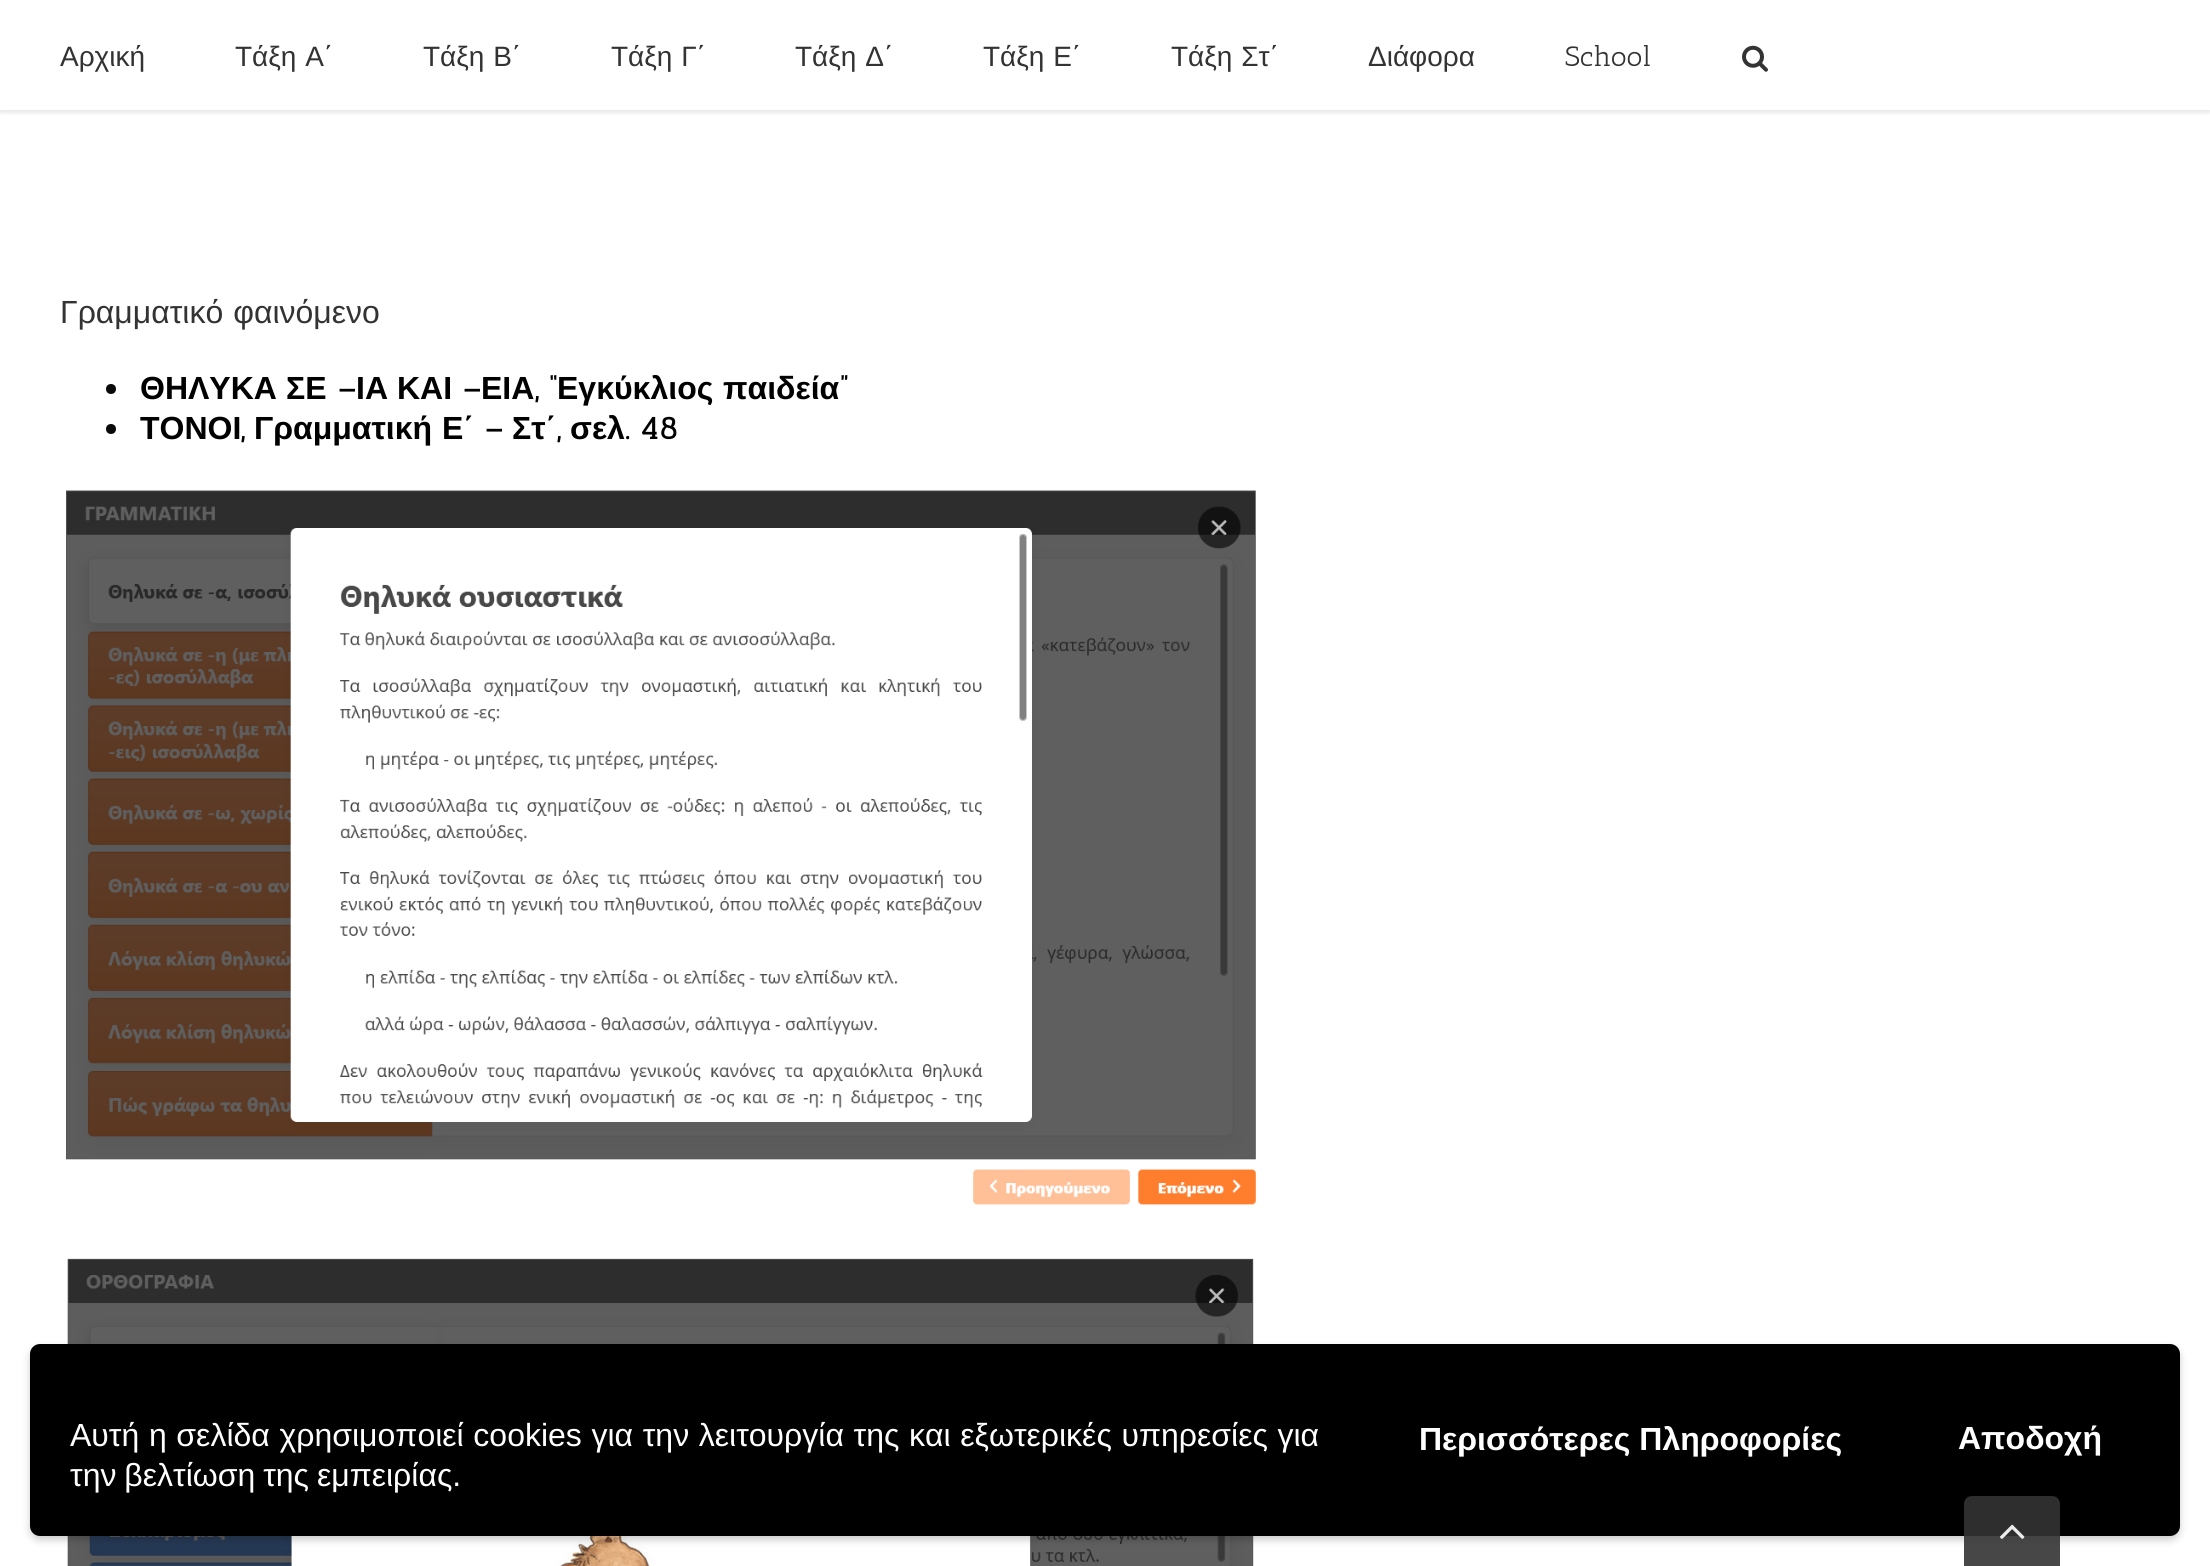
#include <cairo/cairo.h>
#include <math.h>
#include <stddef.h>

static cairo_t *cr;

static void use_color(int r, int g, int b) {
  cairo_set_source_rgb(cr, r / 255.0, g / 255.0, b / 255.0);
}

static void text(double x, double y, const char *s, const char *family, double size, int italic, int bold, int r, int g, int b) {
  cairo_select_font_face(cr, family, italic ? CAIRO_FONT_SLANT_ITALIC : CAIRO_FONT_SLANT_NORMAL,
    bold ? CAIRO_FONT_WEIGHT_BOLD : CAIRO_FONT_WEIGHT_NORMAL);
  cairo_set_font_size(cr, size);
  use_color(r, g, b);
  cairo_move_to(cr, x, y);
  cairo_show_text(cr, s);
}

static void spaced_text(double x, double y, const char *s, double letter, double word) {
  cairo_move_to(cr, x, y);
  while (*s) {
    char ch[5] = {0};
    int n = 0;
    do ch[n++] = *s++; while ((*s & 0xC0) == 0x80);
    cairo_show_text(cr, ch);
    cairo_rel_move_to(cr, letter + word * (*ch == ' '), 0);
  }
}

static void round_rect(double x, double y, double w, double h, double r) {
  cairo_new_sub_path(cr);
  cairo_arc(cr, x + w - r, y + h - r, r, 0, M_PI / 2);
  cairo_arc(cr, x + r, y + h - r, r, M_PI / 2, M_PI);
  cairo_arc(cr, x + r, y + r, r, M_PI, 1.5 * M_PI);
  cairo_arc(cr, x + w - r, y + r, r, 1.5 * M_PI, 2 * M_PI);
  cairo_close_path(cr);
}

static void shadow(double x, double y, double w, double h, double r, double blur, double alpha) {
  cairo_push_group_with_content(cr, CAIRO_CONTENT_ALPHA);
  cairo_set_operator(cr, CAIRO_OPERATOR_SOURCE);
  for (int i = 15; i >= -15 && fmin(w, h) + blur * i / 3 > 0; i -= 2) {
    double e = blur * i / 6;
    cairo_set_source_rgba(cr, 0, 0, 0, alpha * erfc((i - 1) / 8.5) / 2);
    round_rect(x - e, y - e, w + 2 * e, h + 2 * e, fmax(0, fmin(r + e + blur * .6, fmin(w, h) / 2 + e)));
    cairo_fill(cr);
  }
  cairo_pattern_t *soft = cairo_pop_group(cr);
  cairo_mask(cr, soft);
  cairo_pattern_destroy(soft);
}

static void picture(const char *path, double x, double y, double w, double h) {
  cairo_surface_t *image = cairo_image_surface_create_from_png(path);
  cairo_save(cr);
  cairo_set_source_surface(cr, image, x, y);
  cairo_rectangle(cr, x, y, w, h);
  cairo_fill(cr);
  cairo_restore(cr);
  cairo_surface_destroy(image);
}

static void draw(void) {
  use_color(255, 255, 255);
  cairo_paint(cr);
  cairo_save(cr);
  cairo_rectangle(cr, 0, 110, 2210, 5);
  cairo_clip(cr);
  use_color(0, 0, 0);
  shadow(0, 2, 2210, 110, 0, 3, 0.12);
  cairo_restore(cr);
  picture("img_01.png", 1742, 45, 26, 27);
  use_color(10, 10, 10);
  cairo_arc(cr, 111, 389, 5, 0, 2 * M_PI);
  cairo_fill(cr);
  cairo_arc(cr, 111, 429, 5, 0, 2 * M_PI);
  cairo_fill(cr);
  picture("img_02.png", 66, 490, 1190, 715);
  picture("img_03.png", 67, 1258, 1187, 308);
  use_color(0, 0, 0);
  shadow(30, 1348, 2150, 192, 10, 4, 0.2);
  use_color(0, 0, 0);
  round_rect(30, 1344, 2150, 192, 10);
  cairo_fill(cr);
  cairo_set_source_rgba(cr, 0.2, 0.2, 0.2, 0.9);
  cairo_new_path(cr);
  cairo_move_to(cr, 1972, 1496);
  cairo_line_to(cr, 2052, 1496);
  cairo_curve_to(cr, 2056.5, 1496, 2060, 1499.5, 2060, 1504);
  cairo_line_to(cr, 2060, 1566);
  cairo_line_to(cr, 1964, 1566);
  cairo_line_to(cr, 1964, 1504);
  cairo_curve_to(cr, 1964, 1499.5, 1967.5, 1496, 1972, 1496);
  cairo_close_path(cr);
  cairo_fill(cr);
  picture("img_04.png", 2000, 1524, 25, 15);
  text(60, 66, "Αρχική", "Liberation Sans", 28, 0, 0, 51, 51, 51);
  spaced_text(235, 66, "Τάξη Α΄", 0, 1);
  spaced_text(423, 66, "Τάξη Β΄", 0, 1);
  spaced_text(611, 66, "Τάξη Γ΄", 0, 1);
  spaced_text(795, 66, "Τάξη Δ΄", 0, 1);
  spaced_text(983, 66, "Τάξη Ε΄", 0, 1);
  spaced_text(1171, 66, "Τάξη Στ΄", 0, 1);
  text(1368, 66, "Διάφορα", "Liberation Sans", 28, 0, 0, 51, 51, 51);
  text(1565, 66, "School", "Antic Slab", 28, 0, 0, 51, 51, 51);
  cairo_select_font_face(cr, "Liberation Sans", CAIRO_FONT_SLANT_NORMAL, CAIRO_FONT_WEIGHT_NORMAL);
  cairo_set_font_size(cr, 32);
  spaced_text(60, 323, "Γραμματικό φαινόμενο", 0, 1);
  text(140, 399, "ΘΗΛΥΚΑ", "Liberation Sans", 32, 0, 1, 0, 0, 0);
  text(286, 399, "ΣΕ", "Liberation Sans", 32, 0, 1, 0, 0, 0);
  text(337, 399, "–", "Antic Slab", 32, 0, 1, 0, 0, 0);
  text(356, 399, "ΙΑ", "Liberation Sans", 32, 0, 1, 0, 0, 0);
  text(397, 399, "ΚΑΙ", "Liberation Sans", 32, 0, 1, 0, 0, 0);
  text(462, 399, "–", "Antic Slab", 32, 0, 1, 0, 0, 0);
  text(481, 399, "ΕΙΑ", "Liberation Sans", 32, 0, 1, 0, 0, 0);
  text(535, 399, ", “", "Antic Slab", 32, 0, 1, 0, 0, 0);
  text(557, 399, "Εγκύκλιος", "Liberation Sans", 32, 0, 1, 0, 0, 0);
  text(723, 399, "παιδεία", "Liberation Sans", 32, 0, 1, 0, 0, 0);
  text(839, 399, "”", "Antic Slab", 32, 0, 1, 0, 0, 0);
  text(140, 439, "ΤΟΝΟΙ", "Liberation Sans", 32, 0, 1, 0, 0, 0);
  text(254, 439, "Γραμματική", "Liberation Sans", 32, 0, 1, 0, 0, 0);
  text(442, 439, "Ε΄", "Liberation Sans", 32, 0, 1, 0, 0, 0);
  text(484, 439, "–", "Antic Slab", 32, 0, 1, 0, 0, 0);
  text(512, 439, "Στ΄", "Liberation Sans", 32, 0, 1, 0, 0, 0);
  text(570, 439, "σελ", "Liberation Sans", 32, 0, 1, 0, 0, 0);
  text(625, 439, ". 48", "Antic Slab", 32, 0, 1, 0, 0, 0);
  text(241, 439, ",", "Antic Slab", 32, 0, 1, 0, 0, 0);
  text(557, 439, ",", "Antic Slab", 32, 0, 1, 0, 0, 0);
  cairo_select_font_face(cr, "Liberation Sans", CAIRO_FONT_SLANT_NORMAL, CAIRO_FONT_WEIGHT_NORMAL);
  use_color(255, 255, 255);
  spaced_text(70, 1446, "Αυτή η σελίδα χρησιμοποιεί cookies για την λειτουργία της και εξωτερικές υπηρεσίες για", 0, 0.75);
  spaced_text(70, 1486, "την βελτίωση της εμπειρίας.", 0, -1);
  text(1419, 1450, "Περισσότερες Πληροφορίες", "Liberation Sans", 32, 0, 1, 255, 255, 255);
  text(1958, 1449, "Αποδοχή", "Liberation Sans", 32, 0, 1, 255, 255, 255);
}

int main(void) {
  cairo_surface_t *surface = cairo_image_surface_create(CAIRO_FORMAT_RGB24, 2210, 1566);
  cr = cairo_create(surface);
  cairo_font_options_t *options = cairo_font_options_create();
  cairo_font_options_set_hint_metrics(options, CAIRO_HINT_METRICS_OFF);
  cairo_font_options_set_hint_style(options, CAIRO_HINT_STYLE_NONE);
  cairo_set_font_options(cr, options);
  cairo_set_miter_limit(cr, 4);
  draw();
  cairo_surface_write_to_png(surface, "out.png");
  cairo_font_options_destroy(options);
  cairo_destroy(cr);
  cairo_surface_destroy(surface);
  return 0;
}
